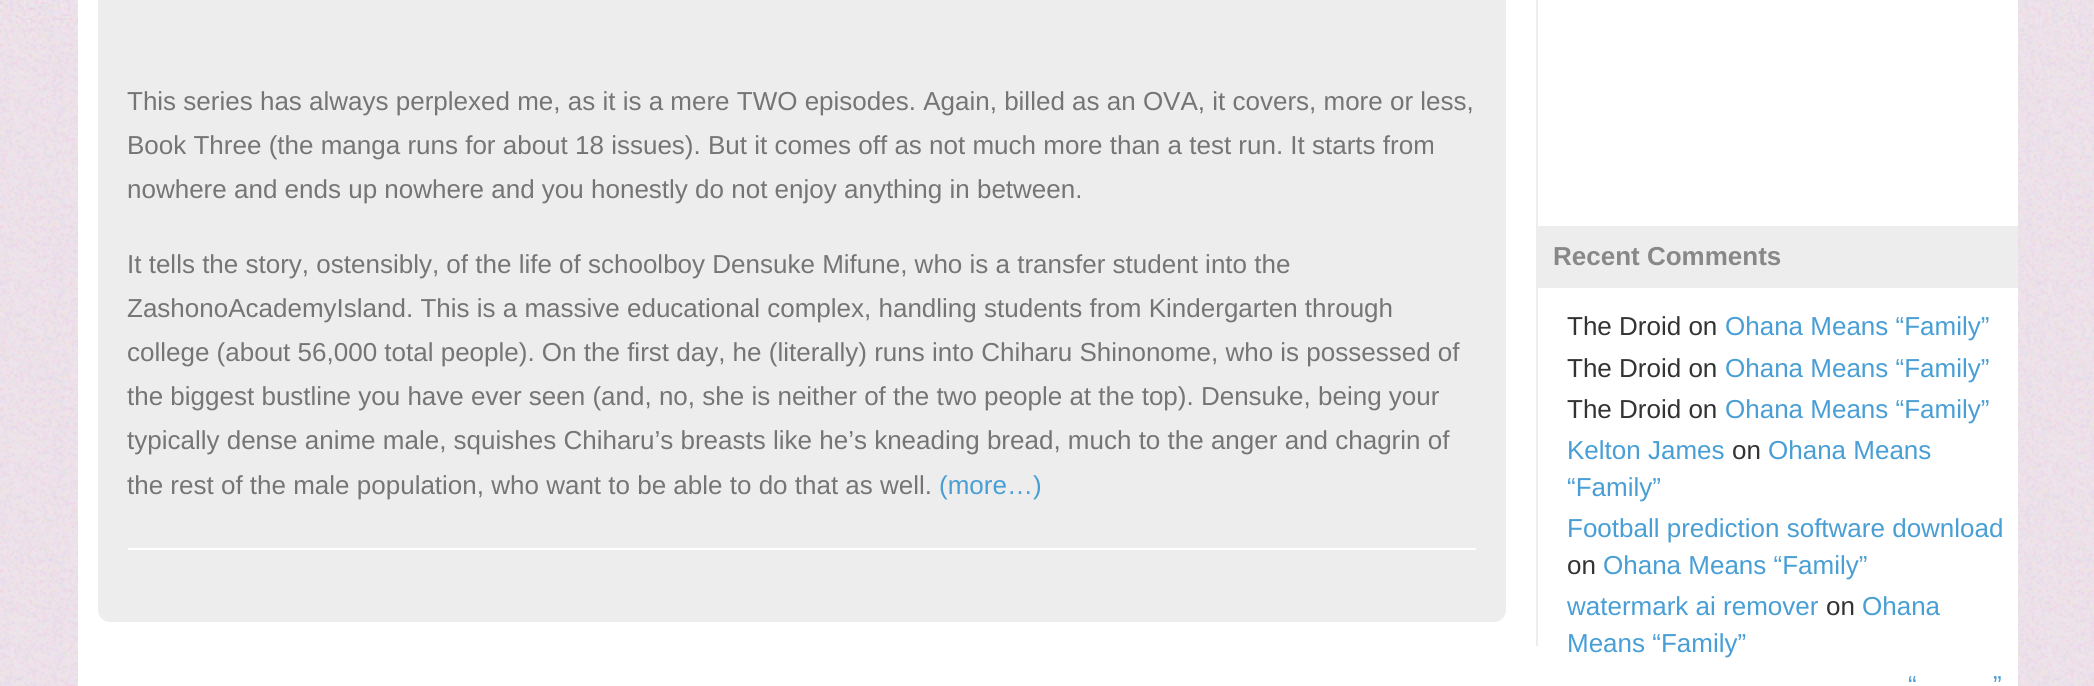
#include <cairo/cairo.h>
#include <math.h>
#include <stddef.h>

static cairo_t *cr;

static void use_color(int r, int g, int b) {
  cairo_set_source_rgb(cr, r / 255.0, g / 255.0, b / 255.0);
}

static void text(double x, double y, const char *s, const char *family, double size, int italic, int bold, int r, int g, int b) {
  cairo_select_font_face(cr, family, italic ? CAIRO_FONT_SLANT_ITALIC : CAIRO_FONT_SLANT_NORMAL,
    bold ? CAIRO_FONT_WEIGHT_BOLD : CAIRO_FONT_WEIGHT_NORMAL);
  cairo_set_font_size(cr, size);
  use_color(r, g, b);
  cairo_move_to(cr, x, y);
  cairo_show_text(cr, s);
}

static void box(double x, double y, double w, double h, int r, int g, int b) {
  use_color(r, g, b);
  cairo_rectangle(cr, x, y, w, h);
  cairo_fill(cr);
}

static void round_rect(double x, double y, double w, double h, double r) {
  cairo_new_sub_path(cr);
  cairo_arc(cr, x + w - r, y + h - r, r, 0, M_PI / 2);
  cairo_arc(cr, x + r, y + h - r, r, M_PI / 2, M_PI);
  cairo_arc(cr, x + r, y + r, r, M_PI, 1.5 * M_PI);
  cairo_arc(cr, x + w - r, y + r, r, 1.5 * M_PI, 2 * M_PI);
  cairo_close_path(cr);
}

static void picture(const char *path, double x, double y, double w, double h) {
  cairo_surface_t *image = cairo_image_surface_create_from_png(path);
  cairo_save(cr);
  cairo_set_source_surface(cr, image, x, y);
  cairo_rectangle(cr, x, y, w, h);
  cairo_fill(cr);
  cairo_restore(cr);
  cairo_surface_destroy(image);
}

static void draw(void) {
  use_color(255, 255, 255);
  cairo_paint(cr);
  picture("img_01.png", 0, 0, 2094, 686);
  box(78, 0, 1940, 686, 255, 255, 255);
  box(1536, 0, 2, 646, 237, 237, 237);
  round_rect(98, -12, 1408, 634, 12);
  cairo_fill(cr);
  box(128, 548, 1348, 2, 255, 255, 255);
  box(1538, 226, 480, 62, 237, 237, 237);
  text(127, 110, "This series has always perplexed me, as it is a mere TWO episodes. Again, billed as an OVA, it covers, more or less,", "Liberation Sans", 26, 0, 0, 117, 117, 117);
  text(127, 154, "Book Three (the manga runs for about 18 issues). But it comes off as not much more than a test run. It starts from", "Liberation Sans", 26, 0, 0, 117, 117, 117);
  text(127, 198, "nowhere and ends up nowhere and you honestly do not enjoy anything in between.", "Liberation Sans", 26, 0, 0, 117, 117, 117);
  text(127, 273, "It tells the story, ostensibly, of the life of schoolboy Densuke Mifune, who is a transfer student into the", "Liberation Sans", 26, 0, 0, 117, 117, 117);
  text(127, 317, "ZashonoAcademyIsland. This is a massive educational complex, handling students from Kindergarten through", "Liberation Sans", 26, 0, 0, 117, 117, 117);
  text(127, 361, "college (about 56,000 total people). On the first day, he (literally) runs into Chiharu Shinonome, who is possessed of", "Liberation Sans", 26, 0, 0, 117, 117, 117);
  text(127, 405, "the biggest bustline you have ever seen (and, no, she is neither of the two people at the top). Densuke, being your", "Liberation Sans", 26, 0, 0, 117, 117, 117);
  text(127, 449, "typically dense anime male, squishes Chiharu’s breasts like he’s kneading bread, much to the anger and chagrin of", "Liberation Sans", 26, 0, 0, 117, 117, 117);
  text(127, 494, "the rest of the male population, who want to be able to do that as well.", "Liberation Sans", 26, 0, 0, 117, 117, 117);
  text(939, 494, "(more…)", "Liberation Sans", 26, 0, 0, 72, 158, 213);
  text(1553, 265, "Recent Comments", "Liberation Sans", 26, 0, 1, 136, 136, 136);
  text(1567, 335, "The Droid on", "Liberation Sans", 26, 0, 0, 51, 51, 51);
  text(1725, 335, "Ohana Means “Family”", "Liberation Sans", 26, 0, 0, 72, 158, 213);
  text(1567, 377, "The Droid on", "Liberation Sans", 26, 0, 0, 51, 51, 51);
  text(1725, 377, "Ohana Means “Family”", "Liberation Sans", 26, 0, 0, 72, 158, 213);
  text(1567, 418, "The Droid on", "Liberation Sans", 26, 0, 0, 51, 51, 51);
  text(1725, 418, "Ohana Means “Family”", "Liberation Sans", 26, 0, 0, 72, 158, 213);
  text(1567, 459, "Kelton James", "Liberation Sans", 26, 0, 0, 72, 158, 213);
  text(1732, 459, "on", "Liberation Sans", 26, 0, 0, 51, 51, 51);
  text(1768, 459, "Ohana Means", "Liberation Sans", 26, 0, 0, 72, 158, 213);
  text(1567, 496, "“Family”", "Liberation Sans", 26, 0, 0, 72, 158, 213);
  text(1567, 537, "Football prediction software download", "Liberation Sans", 26, 0, 0, 72, 158, 213);
  text(1567, 574, "on", "Liberation Sans", 26, 0, 0, 51, 51, 51);
  text(1603, 574, "Ohana Means “Family”", "Liberation Sans", 26, 0, 0, 72, 158, 213);
  text(1567, 615, "watermark ai remover", "Liberation Sans", 26, 0, 0, 72, 158, 213);
  text(1826, 615, "on", "Liberation Sans", 26, 0, 0, 51, 51, 51);
  text(1862, 615, "Ohana", "Liberation Sans", 26, 0, 0, 72, 158, 213);
  text(1567, 652, "Means “Family”", "Liberation Sans", 26, 0, 0, 72, 158, 213);
  text(1908, 694, "“", "Liberation Sans", 26, 0, 0, 72, 158, 213);
  text(1993, 694, "”", "Liberation Sans", 26, 0, 0, 72, 158, 213);
}

int main(void) {
  cairo_surface_t *surface = cairo_image_surface_create(CAIRO_FORMAT_RGB24, 2094, 686);
  cr = cairo_create(surface);
  cairo_font_options_t *options = cairo_font_options_create();
  cairo_font_options_set_hint_metrics(options, CAIRO_HINT_METRICS_OFF);
  cairo_font_options_set_hint_style(options, CAIRO_HINT_STYLE_NONE);
  cairo_set_font_options(cr, options);
  cairo_set_miter_limit(cr, 4);
  draw();
  cairo_surface_write_to_png(surface, "out.png");
  cairo_font_options_destroy(options);
  cairo_destroy(cr);
  cairo_surface_destroy(surface);
  return 0;
}
